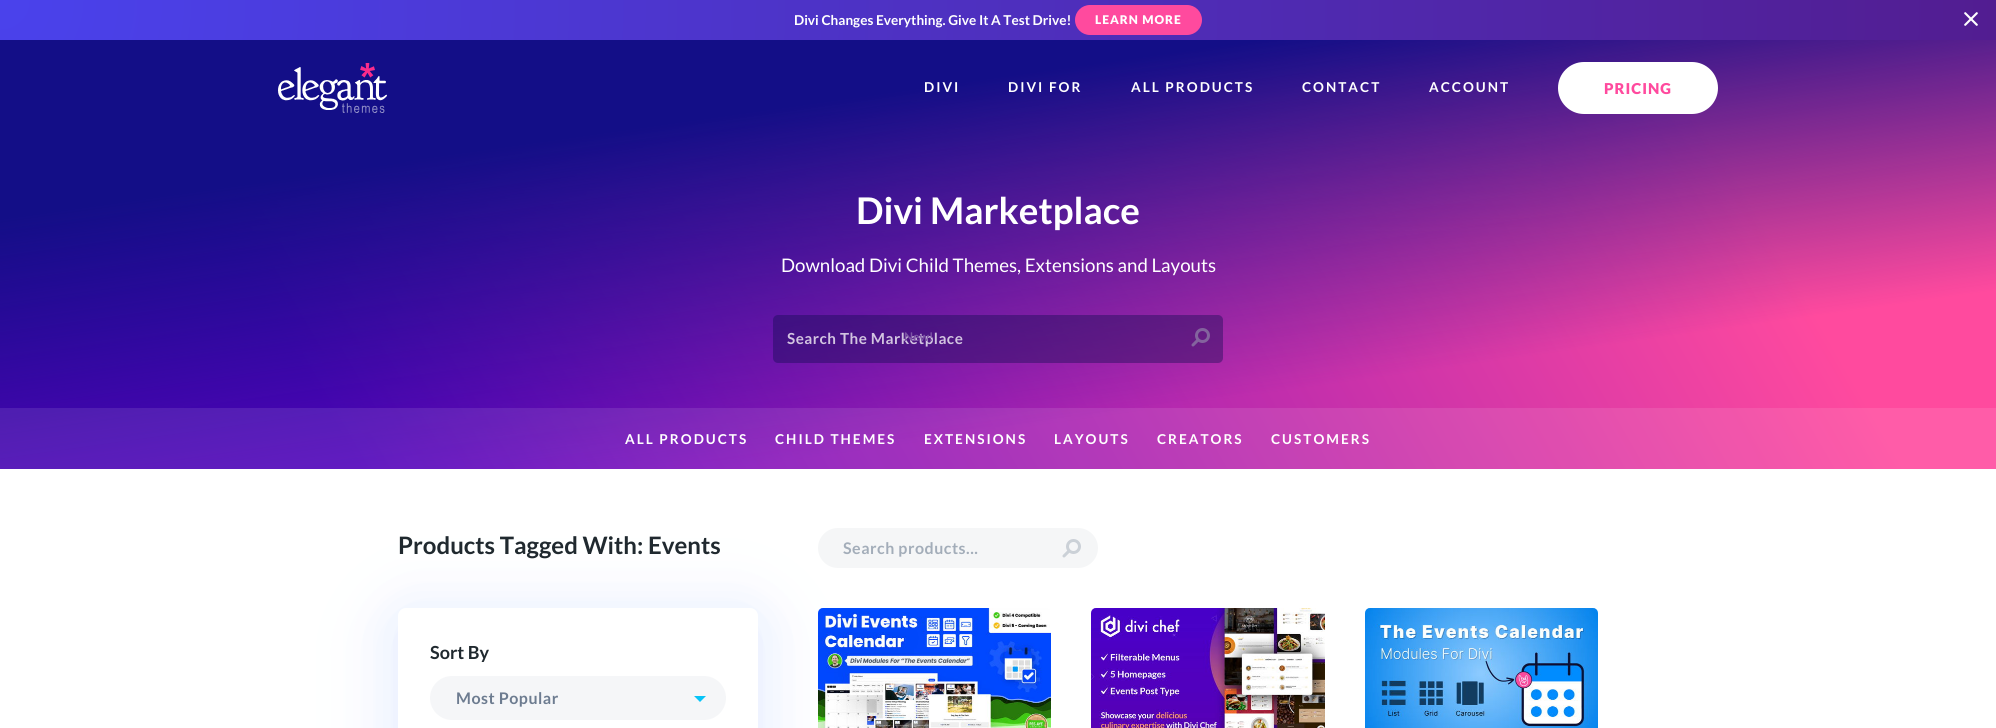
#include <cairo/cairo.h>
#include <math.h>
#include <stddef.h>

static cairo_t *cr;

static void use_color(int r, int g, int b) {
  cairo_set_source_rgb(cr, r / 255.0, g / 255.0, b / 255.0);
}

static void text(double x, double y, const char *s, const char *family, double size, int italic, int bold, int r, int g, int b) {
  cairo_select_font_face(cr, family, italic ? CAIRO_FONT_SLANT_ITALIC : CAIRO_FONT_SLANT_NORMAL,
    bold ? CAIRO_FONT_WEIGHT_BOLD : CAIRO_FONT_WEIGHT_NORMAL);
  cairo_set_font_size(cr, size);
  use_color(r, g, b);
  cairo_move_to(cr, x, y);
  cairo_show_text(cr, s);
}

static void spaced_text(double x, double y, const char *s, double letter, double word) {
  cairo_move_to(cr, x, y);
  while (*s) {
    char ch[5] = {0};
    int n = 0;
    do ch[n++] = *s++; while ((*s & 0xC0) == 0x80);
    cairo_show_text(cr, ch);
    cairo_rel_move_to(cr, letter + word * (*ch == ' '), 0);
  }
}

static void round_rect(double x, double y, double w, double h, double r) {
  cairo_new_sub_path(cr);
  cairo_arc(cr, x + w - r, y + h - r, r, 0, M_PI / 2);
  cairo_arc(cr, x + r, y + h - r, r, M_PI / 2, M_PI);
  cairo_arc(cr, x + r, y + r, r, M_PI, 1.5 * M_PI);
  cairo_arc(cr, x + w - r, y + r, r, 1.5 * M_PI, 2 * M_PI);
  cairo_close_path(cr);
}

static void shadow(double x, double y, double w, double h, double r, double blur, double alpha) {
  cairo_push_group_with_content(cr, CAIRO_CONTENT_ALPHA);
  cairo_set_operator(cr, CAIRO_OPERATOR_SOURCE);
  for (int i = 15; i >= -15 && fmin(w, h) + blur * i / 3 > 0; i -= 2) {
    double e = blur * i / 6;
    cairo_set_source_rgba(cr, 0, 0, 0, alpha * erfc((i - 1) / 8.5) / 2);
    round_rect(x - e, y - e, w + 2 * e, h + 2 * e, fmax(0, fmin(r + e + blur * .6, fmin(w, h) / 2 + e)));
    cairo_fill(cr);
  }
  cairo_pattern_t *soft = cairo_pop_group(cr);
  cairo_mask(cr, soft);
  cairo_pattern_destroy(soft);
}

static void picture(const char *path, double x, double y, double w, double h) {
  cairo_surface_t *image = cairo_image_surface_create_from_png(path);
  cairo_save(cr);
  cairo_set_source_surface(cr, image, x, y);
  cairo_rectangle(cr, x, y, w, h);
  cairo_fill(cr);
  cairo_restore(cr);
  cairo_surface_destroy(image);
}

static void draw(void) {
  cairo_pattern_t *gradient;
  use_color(255, 255, 255);
  cairo_paint(cr);
  gradient = cairo_pattern_create_radial(0, 0, 0, 0, 0, 1996);
  cairo_pattern_add_color_stop_rgba(gradient, 0, 0.29, 0.259, 0.925, 1);
  cairo_pattern_add_color_stop_rgba(gradient, 1, 0.322, 0.114, 0.569, 1);
  cairo_set_source(cr, gradient);
  cairo_pattern_destroy(gradient);
  cairo_rectangle(cr, 0, 0, 1996, 40);
  cairo_fill(cr);
  use_color(255, 74, 158);
  round_rect(1075, 5, 127, 30, 15);
  cairo_fill(cr);
  use_color(255, 255, 255);
  cairo_new_path(cr);
  cairo_move_to(cr, 1977.5, 12.5);
  cairo_curve_to(cr, 1978, 13, 1978, 13.5, 1977.5, 14);
  cairo_line_to(cr, 1966, 25.5);
  cairo_curve_to(cr, 1965.5, 26, 1965, 26, 1964.5, 25.5);
  cairo_curve_to(cr, 1964, 25, 1964, 24.5, 1964.5, 24);
  cairo_line_to(cr, 1976, 12.5);
  cairo_curve_to(cr, 1976.5, 12, 1977, 12, 1977.5, 12.5);
  cairo_close_path(cr);
  cairo_fill(cr);
  cairo_new_path(cr);
  cairo_move_to(cr, 1964.5, 12.5);
  cairo_curve_to(cr, 1965, 12, 1965.5, 12, 1966, 12.5);
  cairo_line_to(cr, 1977.5, 24);
  cairo_curve_to(cr, 1978, 24.5, 1978, 25, 1977.5, 25.5);
  cairo_curve_to(cr, 1977, 26, 1976.5, 26, 1976, 25.5);
  cairo_line_to(cr, 1964.5, 14);
  cairo_curve_to(cr, 1964, 13.5, 1964, 13, 1964.5, 12.5);
  cairo_close_path(cr);
  cairo_fill(cr);
  gradient = cairo_pattern_create_linear(157, 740, 1839, -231);
  cairo_pattern_add_color_stop_rgba(gradient, 0.16, 0.361, 0, 0.765, 1);
  cairo_pattern_add_color_stop_rgba(gradient, 0.85, 1, 0.29, 0.62, 1);
  cairo_set_source(cr, gradient);
  cairo_pattern_destroy(gradient);
  cairo_rectangle(cr, 0, 40, 1996, 429);
  cairo_fill(cr);
  gradient = cairo_pattern_create_linear(998, 40, 998, 469);
  cairo_pattern_add_color_stop_rgba(gradient, 0, 1, 0.29, 0.62, 0.2);
  cairo_pattern_add_color_stop_rgba(gradient, 0.5, 1, 0.29, 0.62, 0);
  cairo_set_source(cr, gradient);
  cairo_pattern_destroy(gradient);
  cairo_rectangle(cr, 0, 40, 1541, 191);
  cairo_fill(cr);
  gradient = cairo_pattern_create_linear(1047, 602, 949, -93);
  cairo_pattern_add_color_stop_rgba(gradient, 0.25, 0.075, 0.055, 0.529, 0);
  cairo_pattern_add_color_stop_rgba(gradient, 0.75, 0.075, 0.055, 0.529, 1);
  cairo_set_source(cr, gradient);
  cairo_pattern_destroy(gradient);
  cairo_rectangle(cr, 0, 40, 1996, 429);
  cairo_fill(cr);
  picture("img_01.png", 278, 63, 109, 50);
  use_color(255, 255, 255);
  round_rect(1558, 62, 160, 52, 26);
  cairo_fill(cr);
  cairo_set_source_rgba(cr, 0.055, 0.047, 0.306, 0.39);
  round_rect(773, 315, 450, 48, 5);
  cairo_fill(cr);
  picture("img_02.png", 1191, 328, 19, 19);
  cairo_set_source_rgba(cr, 1, 1, 1, 0.1);
  cairo_rectangle(cr, 0, 408, 1996, 61);
  cairo_fill(cr);
  use_color(103, 151, 255);
  shadow(398, 620, 360, 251, 8, 45, 0.11);
  shadow(398, 616, 360, 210, 8, 30, 0.11);
  use_color(245, 246, 247);
  round_rect(818, 528, 280, 40, 20);
  cairo_fill(cr);
  picture("img_03.png", 1062, 539, 19, 19);
  picture("img_04.png", 818, 608, 233, 120);
  picture("img_05.png", 1091, 608, 234, 120);
  picture("img_06.png", 1365, 608, 233, 120);
  use_color(255, 255, 255);
  round_rect(398, 608, 360, 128, 8);
  cairo_fill(cr);
  use_color(0, 201, 255);
  cairo_new_path(cr);
  cairo_move_to(cr, 694, 696);
  cairo_line_to(cr, 706, 696);
  cairo_line_to(cr, 700, 702);
  cairo_close_path(cr);
  cairo_fill(cr);
  cairo_set_source_rgba(cr, 0.427, 0.486, 0.565, 0.07);
  round_rect(430, 676, 296, 44, 22);
  cairo_fill(cr);
  text(794, 25, "Divi Changes Everything. Give It A Test Drive!", "Lato", 13.6, 0, 1, 255, 255, 255);
  cairo_select_font_face(cr, "Lato Black", CAIRO_FONT_SLANT_NORMAL, CAIRO_FONT_WEIGHT_NORMAL);
  cairo_set_font_size(cr, 12);
  spaced_text(1095, 24, "LEARN MORE", 1, 0);
  cairo_select_font_face(cr, "Lato", CAIRO_FONT_SLANT_NORMAL, CAIRO_FONT_WEIGHT_BOLD);
  cairo_set_font_size(cr, 13.6);
  spaced_text(924, 92, "DIVI", 2, 0);
  spaced_text(1008, 92, "DIVI FOR", 2, 0);
  spaced_text(1131, 92, "ALL PRODUCTS", 2, 0);
  spaced_text(1302, 92, "CONTACT", 2, 0);
  spaced_text(1429, 92, "ACCOUNT", 2, 0);
  cairo_select_font_face(cr, "Lato Black", CAIRO_FONT_SLANT_NORMAL, CAIRO_FONT_WEIGHT_NORMAL);
  cairo_set_font_size(cr, 15);
  use_color(255, 74, 158);
  spaced_text(1604, 94, "PRICING", 1, 0);
  text(856, 224, "Divi Marketplace", "Lato", 36.75, 0, 1, 255, 255, 255);
  text(781, 272, "Download Divi Child Themes, Extensions and Layouts", "Lato", 18.7, 0, 0, 255, 255, 255);
  cairo_select_font_face(cr, "Lato", CAIRO_FONT_SLANT_NORMAL, CAIRO_FONT_WEIGHT_BOLD);
  cairo_set_font_size(cr, 15.25);
  use_color(210, 196, 224);
  spaced_text(787, 344, "Search The Marketplace", 0.5, 0);
  text(904, 341, "New!", "Lato", 12, 0, 1, 126, 86, 166);
  cairo_set_font_size(cr, 13.6);
  use_color(255, 255, 255);
  spaced_text(625, 444, "ALL PRODUCTS", 2, 0);
  spaced_text(775, 444, "CHILD THEMES", 2, 0);
  spaced_text(924, 444, "EXTENSIONS", 2, 0);
  spaced_text(1054, 444, "LAYOUTS", 2, 0);
  spaced_text(1157, 444, "CREATORS", 2, 0);
  spaced_text(1271, 444, "CUSTOMERS", 2, 0);
  text(398, 554, "Products Tagged With: Events", "Lato", 24, 0, 1, 32, 41, 47);
  cairo_set_font_size(cr, 16);
  use_color(163, 173, 185);
  spaced_text(843, 554, "Search products...", 0.5, 0);
  text(430, 659, "Sort By", "Lato", 18, 0, 1, 32, 41, 47);
  cairo_set_font_size(cr, 16);
  use_color(109, 124, 144);
  spaced_text(456, 704, "Most Popular", 0.5, 0);
}

int main(void) {
  cairo_surface_t *surface = cairo_image_surface_create(CAIRO_FORMAT_RGB24, 1996, 728);
  cr = cairo_create(surface);
  cairo_font_options_t *options = cairo_font_options_create();
  cairo_font_options_set_hint_metrics(options, CAIRO_HINT_METRICS_OFF);
  cairo_font_options_set_hint_style(options, CAIRO_HINT_STYLE_NONE);
  cairo_set_font_options(cr, options);
  cairo_set_miter_limit(cr, 4);
  draw();
  cairo_surface_write_to_png(surface, "out.png");
  cairo_font_options_destroy(options);
  cairo_destroy(cr);
  cairo_surface_destroy(surface);
  return 0;
}
